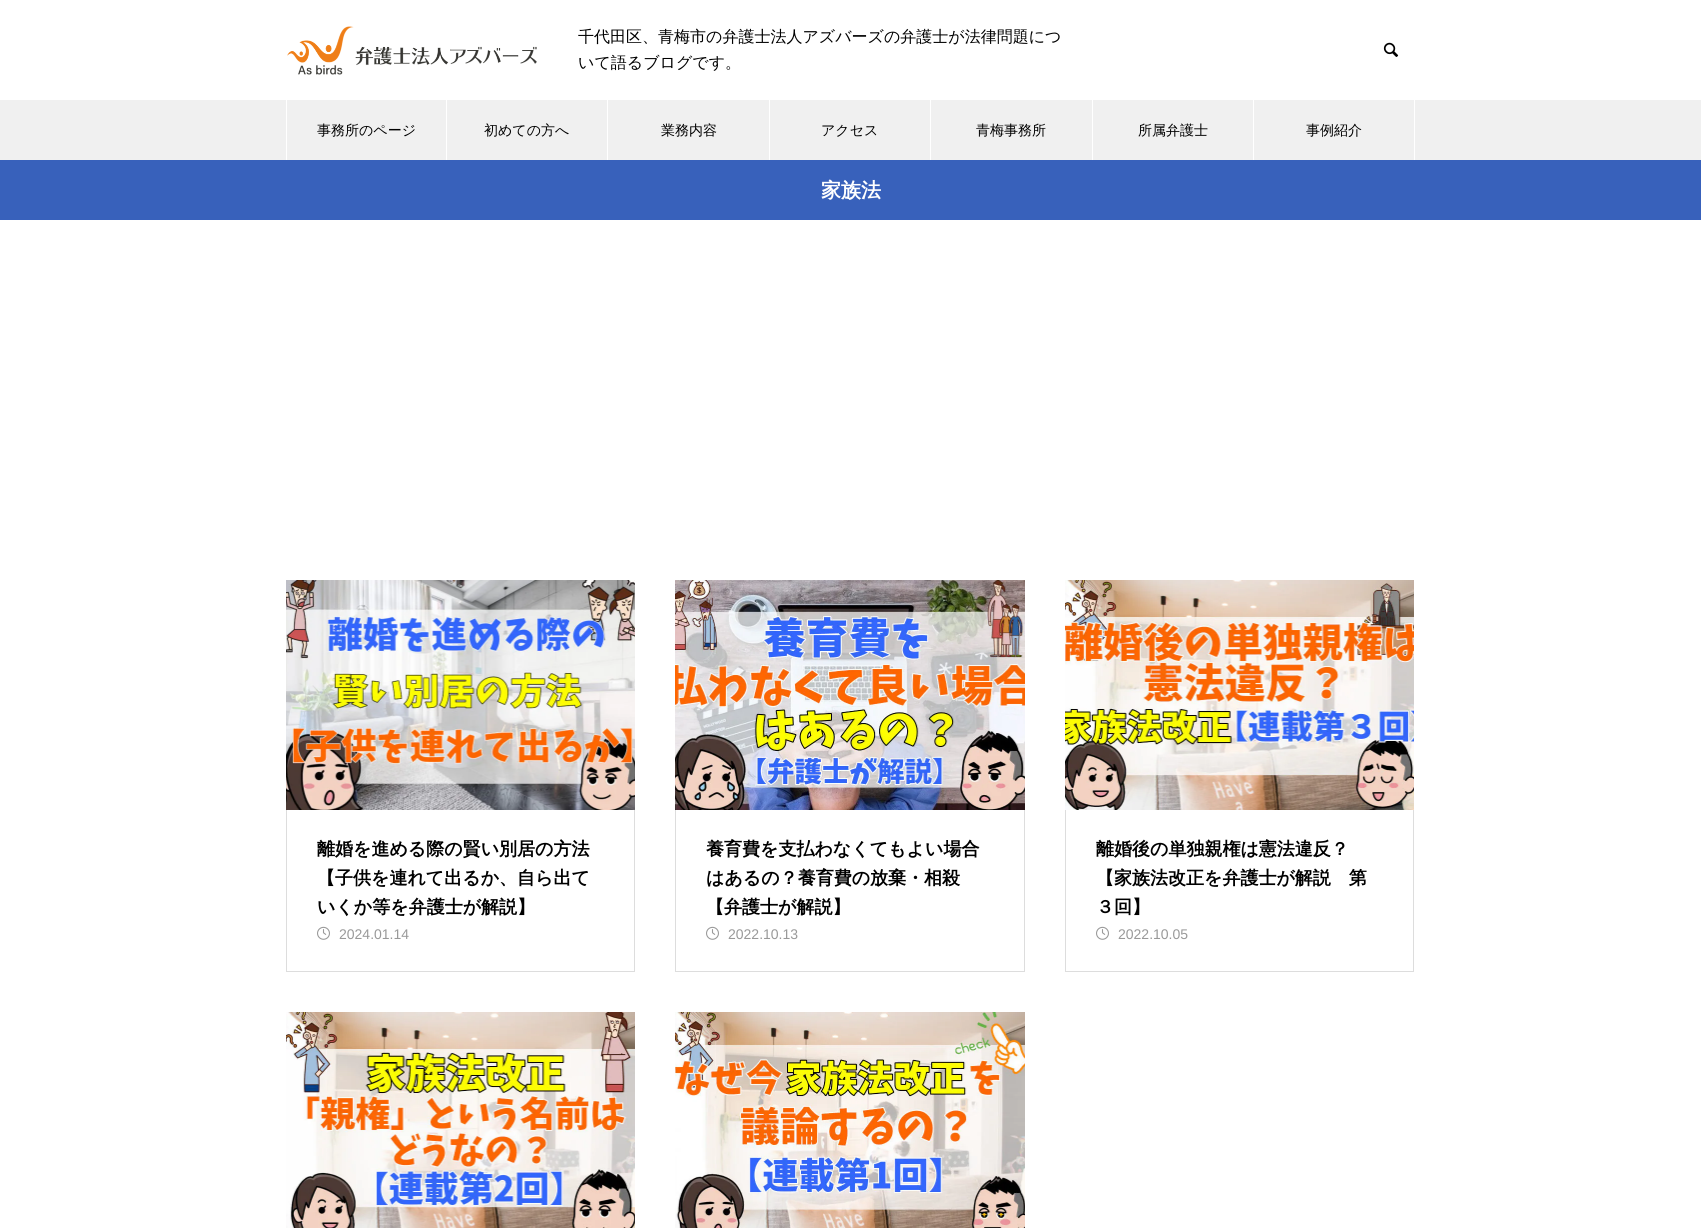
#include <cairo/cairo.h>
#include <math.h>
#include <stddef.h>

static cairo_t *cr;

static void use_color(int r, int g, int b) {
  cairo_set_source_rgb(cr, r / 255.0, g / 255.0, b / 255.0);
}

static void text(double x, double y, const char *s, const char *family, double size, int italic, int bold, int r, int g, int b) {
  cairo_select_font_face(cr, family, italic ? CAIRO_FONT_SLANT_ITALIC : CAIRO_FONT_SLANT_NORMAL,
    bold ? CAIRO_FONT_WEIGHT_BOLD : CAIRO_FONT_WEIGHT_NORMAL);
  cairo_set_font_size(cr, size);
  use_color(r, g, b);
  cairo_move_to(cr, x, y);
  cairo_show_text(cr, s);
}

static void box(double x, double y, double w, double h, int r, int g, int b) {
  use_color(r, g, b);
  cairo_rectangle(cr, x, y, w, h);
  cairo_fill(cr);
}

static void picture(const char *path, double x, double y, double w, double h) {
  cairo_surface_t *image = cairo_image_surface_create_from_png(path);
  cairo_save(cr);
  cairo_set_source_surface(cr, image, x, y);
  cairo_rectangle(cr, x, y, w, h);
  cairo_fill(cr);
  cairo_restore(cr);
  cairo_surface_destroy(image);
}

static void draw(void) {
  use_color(255, 255, 255);
  cairo_paint(cr);
  picture("img_01.png", 287, 26, 250, 49);
  picture("img_02.png", 1383, 42, 16, 15);
  box(0, 100, 1701, 60, 240, 240, 240);
  box(446, 100, 1, 60, 255, 255, 255);
  box(286, 100, 1, 60, 255, 255, 255);
  box(607, 100, 1, 60, 255, 255, 255);
  box(769, 100, 1, 60, 255, 255, 255);
  box(930, 100, 1, 60, 255, 255, 255);
  box(1092, 100, 1, 60, 255, 255, 255);
  box(1253, 100, 1, 60, 255, 255, 255);
  box(1414, 100, 1, 60, 255, 255, 255);
  box(0, 160, 1701, 60, 56, 97, 187);
  picture("img_03.png", 286, 580, 349, 230);
  box(634, 810, 1, 162, 221, 221, 221);
  box(286, 971, 349, 1, 221, 221, 221);
  box(286, 810, 1, 162, 221, 221, 221);
  picture("img_04.png", 317, 926, 13, 14);
  picture("img_05.png", 675, 580, 350, 230);
  box(1024, 810, 1, 162, 221, 221, 221);
  box(675, 971, 350, 1, 221, 221, 221);
  box(675, 810, 1, 162, 221, 221, 221);
  picture("img_04.png", 706, 926, 13, 14);
  picture("img_06.png", 1065, 580, 349, 230);
  box(1413, 810, 1, 162, 221, 221, 221);
  box(1065, 971, 349, 1, 221, 221, 221);
  box(1065, 810, 1, 162, 221, 221, 221);
  picture("img_04.png", 1096, 926, 13, 14);
  picture("img_07.png", 286, 1012, 349, 216);
  picture("img_08.png", 675, 1012, 350, 216);
  text(578, 42, "千代田区、青梅市の弁護士法人アズバーズの弁護士が法律問題につ", "WenQuanYi Zen Hei Medium", 16, 0, 0, 0, 0, 0);
  text(578, 68, "いて語るブログです。", "WenQuanYi Zen Hei Medium", 16, 0, 0, 0, 0, 0);
  text(317, 135, "事務所のページ", "WenQuanYi Zen Hei Medium", 14, 0, 0, 0, 0, 0);
  text(484, 135, "初めての方へ", "WenQuanYi Zen Hei Medium", 14, 0, 0, 0, 0, 0);
  text(661, 135, "業務内容", "WenQuanYi Zen Hei Medium", 14, 0, 0, 0, 0, 0);
  text(821, 135, "アクセス", "WenQuanYi Zen Hei Medium", 14, 0, 0, 0, 0, 0);
  text(976, 135, "青梅事務所", "WenQuanYi Zen Hei Medium", 14, 0, 0, 0, 0, 0);
  text(1138, 135, "所属弁護士", "WenQuanYi Zen Hei Medium", 14, 0, 0, 0, 0, 0);
  text(1306, 135, "事例紹介", "WenQuanYi Zen Hei Medium", 14, 0, 0, 0, 0, 0);
  text(821, 197, "家族法", "WenQuanYi Zen Hei", 20, 0, 1, 255, 255, 255);
  text(317, 855, "離婚を進める際の賢い別居の方法", "WenQuanYi Zen Hei", 18, 0, 1, 0, 0, 0);
  text(317, 884, "【子供を連れて出るか、自ら出て", "WenQuanYi Zen Hei", 18, 0, 1, 0, 0, 0);
  text(317, 913, "いくか等を弁護士が解説】", "WenQuanYi Zen Hei", 18, 0, 1, 0, 0, 0);
  text(339, 939, "2024.01.14", "Liberation Sans", 14, 0, 0, 153, 153, 153);
  text(706, 855, "養育費を支払わなくてもよい場合", "WenQuanYi Zen Hei", 18, 0, 1, 0, 0, 0);
  text(706, 884, "はあるの？養育費の放棄・相殺", "WenQuanYi Zen Hei", 18, 0, 1, 0, 0, 0);
  text(706, 913, "【弁護士が解説】", "WenQuanYi Zen Hei", 18, 0, 1, 0, 0, 0);
  text(728, 939, "2022.10.13", "Liberation Sans", 14, 0, 0, 153, 153, 153);
  text(1096, 855, "離婚後の単独親権は憲法違反？", "WenQuanYi Zen Hei", 18, 0, 1, 0, 0, 0);
  text(1096, 884, "【家族法改正を弁護士が解説　第", "WenQuanYi Zen Hei", 18, 0, 1, 0, 0, 0);
  text(1096, 913, "３回】", "WenQuanYi Zen Hei", 18, 0, 1, 0, 0, 0);
  text(1118, 939, "2022.10.05", "Liberation Sans", 14, 0, 0, 153, 153, 153);
}

int main(void) {
  cairo_surface_t *surface = cairo_image_surface_create(CAIRO_FORMAT_RGB24, 1701, 1228);
  cr = cairo_create(surface);
  cairo_font_options_t *options = cairo_font_options_create();
  cairo_font_options_set_hint_metrics(options, CAIRO_HINT_METRICS_OFF);
  cairo_font_options_set_hint_style(options, CAIRO_HINT_STYLE_NONE);
  cairo_set_font_options(cr, options);
  cairo_set_miter_limit(cr, 4);
  draw();
  cairo_surface_write_to_png(surface, "out.png");
  cairo_font_options_destroy(options);
  cairo_destroy(cr);
  cairo_surface_destroy(surface);
  return 0;
}
